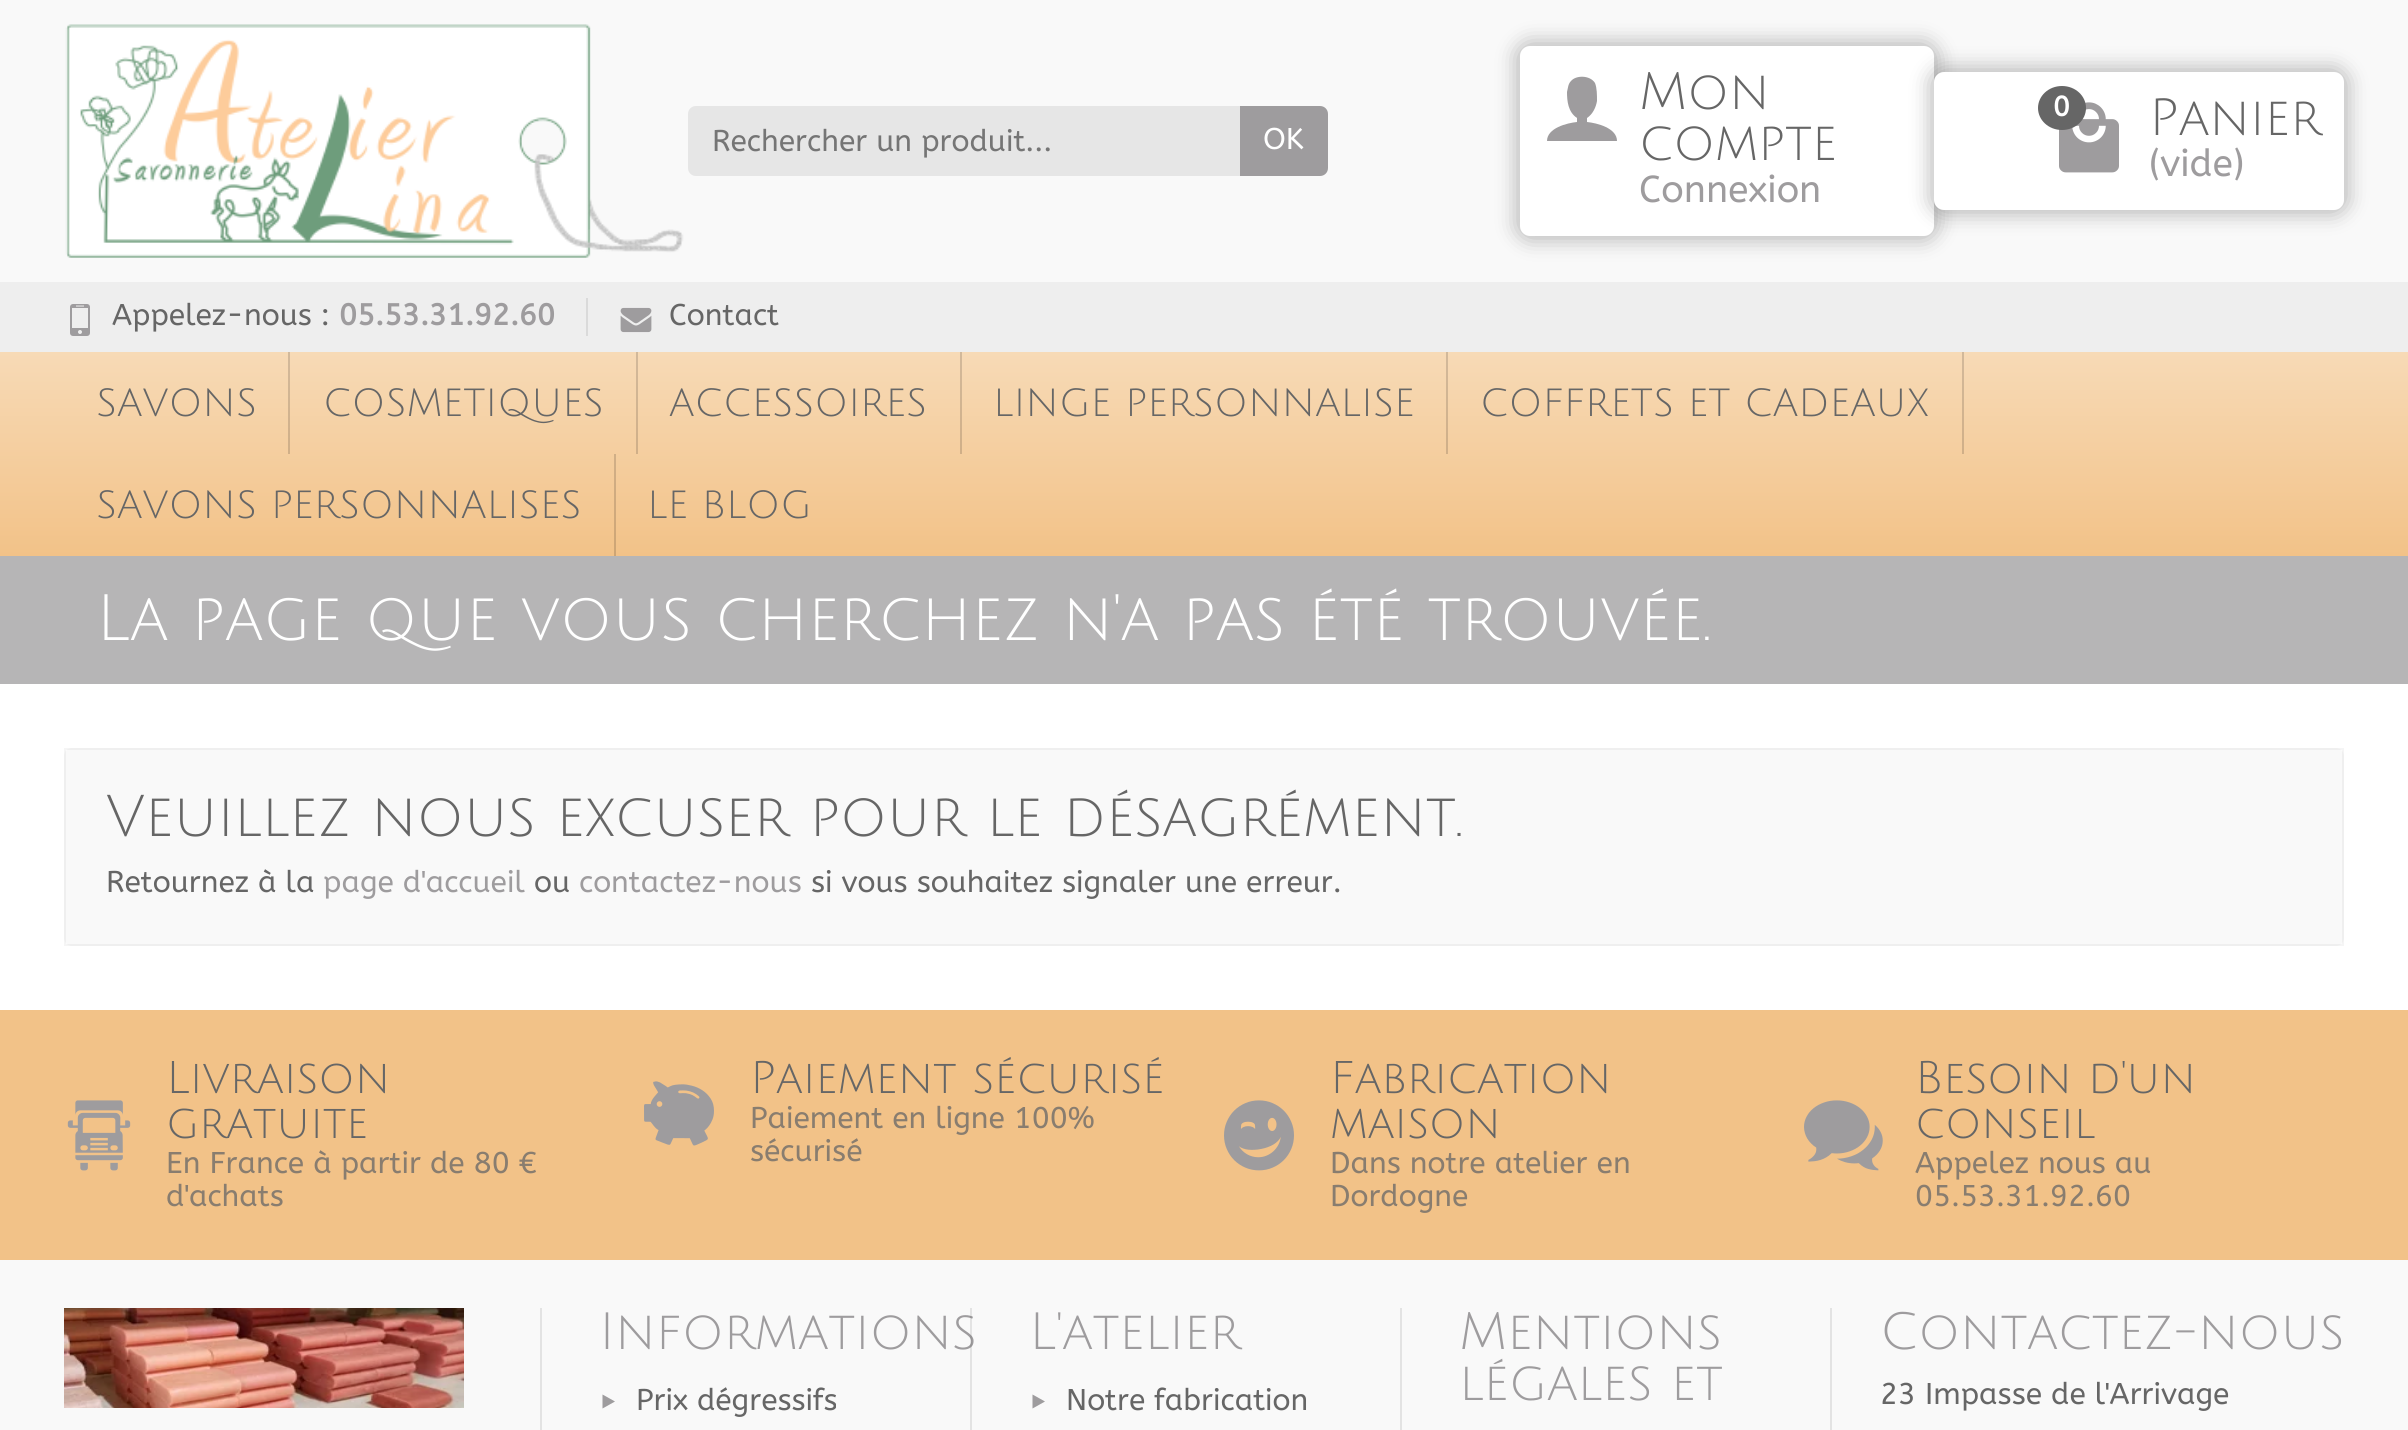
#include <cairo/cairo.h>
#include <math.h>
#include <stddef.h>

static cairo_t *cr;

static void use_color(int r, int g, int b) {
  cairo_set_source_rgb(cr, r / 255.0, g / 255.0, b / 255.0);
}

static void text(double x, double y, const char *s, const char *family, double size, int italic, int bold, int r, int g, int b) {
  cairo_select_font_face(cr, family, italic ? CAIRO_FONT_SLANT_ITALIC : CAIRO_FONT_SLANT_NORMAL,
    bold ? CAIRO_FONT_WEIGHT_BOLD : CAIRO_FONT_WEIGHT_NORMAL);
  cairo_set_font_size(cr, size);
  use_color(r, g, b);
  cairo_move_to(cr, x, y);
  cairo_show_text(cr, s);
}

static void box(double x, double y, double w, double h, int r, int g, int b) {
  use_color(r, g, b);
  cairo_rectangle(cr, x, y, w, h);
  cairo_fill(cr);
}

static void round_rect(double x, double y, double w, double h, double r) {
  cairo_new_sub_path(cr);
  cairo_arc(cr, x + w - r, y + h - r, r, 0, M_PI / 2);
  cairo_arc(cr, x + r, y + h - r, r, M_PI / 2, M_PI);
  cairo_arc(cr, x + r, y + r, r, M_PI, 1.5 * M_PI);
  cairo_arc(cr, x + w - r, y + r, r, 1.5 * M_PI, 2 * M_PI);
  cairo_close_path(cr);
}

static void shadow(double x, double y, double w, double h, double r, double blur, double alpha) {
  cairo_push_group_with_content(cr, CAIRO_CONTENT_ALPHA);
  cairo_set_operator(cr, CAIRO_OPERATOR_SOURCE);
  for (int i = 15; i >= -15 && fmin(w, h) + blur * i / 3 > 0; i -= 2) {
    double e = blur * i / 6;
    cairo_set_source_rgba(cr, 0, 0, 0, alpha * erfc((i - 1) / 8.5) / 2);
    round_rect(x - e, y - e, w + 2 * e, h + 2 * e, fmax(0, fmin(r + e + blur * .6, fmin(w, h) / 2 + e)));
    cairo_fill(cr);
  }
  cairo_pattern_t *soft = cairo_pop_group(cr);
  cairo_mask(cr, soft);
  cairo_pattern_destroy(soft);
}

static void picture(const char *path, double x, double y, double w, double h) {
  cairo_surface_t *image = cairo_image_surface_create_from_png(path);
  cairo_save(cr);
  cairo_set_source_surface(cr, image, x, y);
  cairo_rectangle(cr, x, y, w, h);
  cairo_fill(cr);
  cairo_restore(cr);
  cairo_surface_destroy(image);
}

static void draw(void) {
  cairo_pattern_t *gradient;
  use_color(255, 255, 255);
  cairo_paint(cr);
  box(0, 0, 2408, 282, 249, 249, 249);
  picture("img_01.png", 65, 24, 619, 234);
  use_color(230, 230, 230);
  cairo_new_path(cr);
  cairo_move_to(cr, 696, 106);
  cairo_line_to(cr, 1240, 106);
  cairo_line_to(cr, 1240, 176);
  cairo_line_to(cr, 696, 176);
  cairo_curve_to(cr, 691.5, 176, 688, 172.5, 688, 168);
  cairo_line_to(cr, 688, 114);
  cairo_curve_to(cr, 688, 109.5, 691.5, 106, 696, 106);
  cairo_close_path(cr);
  cairo_fill(cr);
  use_color(158, 156, 158);
  cairo_new_path(cr);
  cairo_move_to(cr, 1240, 106);
  cairo_line_to(cr, 1320, 106);
  cairo_curve_to(cr, 1324.5, 106, 1328, 109.5, 1328, 114);
  cairo_line_to(cr, 1328, 168);
  cairo_curve_to(cr, 1328, 172.5, 1324.5, 176, 1320, 176);
  cairo_line_to(cr, 1240, 176);
  cairo_close_path(cr);
  cairo_fill(cr);
  use_color(0, 0, 0);
  shadow(1518, 44, 418, 194, 12, 11, 0.31);
  use_color(255, 255, 255);
  round_rect(1520, 46, 414, 190, 10);
  cairo_fill(cr);
  use_color(158, 156, 158);
  cairo_new_path(cr);
  cairo_move_to(cr, 1587, 122);
  cairo_line_to(cr, 1587, 118);
  cairo_curve_to(cr, 1593, 114, 1596, 107, 1597, 101);
  cairo_curve_to(cr, 1597, 95, 1597, 88, 1595, 83);
  cairo_curve_to(cr, 1590, 75, 1576, 75, 1571, 81);
  cairo_curve_to(cr, 1568, 84, 1568, 88, 1567, 92);
  cairo_curve_to(cr, 1567, 101, 1568, 112, 1577, 118);
  cairo_line_to(cr, 1577, 122);
  cairo_curve_to(cr, 1567, 123, 1547, 128, 1547, 141);
  cairo_line_to(cr, 1617, 141);
  cairo_curve_to(cr, 1617, 128, 1597, 123, 1587, 122);
  cairo_close_path(cr);
  cairo_fill(cr);
  use_color(0, 0, 0);
  shadow(1932, 70, 414, 142, 12, 11, 0.31);
  use_color(255, 255, 255);
  round_rect(1934, 72, 410, 138, 10);
  cairo_fill(cr);
  picture("img_02.png", 2059, 102, 60, 71);
  use_color(102, 102, 102);
  cairo_new_path(cr);
  cairo_move_to(cr, 2062, 86);
  cairo_curve_to(cr, 2075.5, 86, 2086, 96, 2086, 108);
  cairo_curve_to(cr, 2086, 120, 2075.5, 130, 2062, 130);
  cairo_curve_to(cr, 2048.5, 130, 2038, 120, 2038, 108);
  cairo_curve_to(cr, 2038, 96, 2048.5, 86, 2062, 86);
  cairo_close_path(cr);
  cairo_fill(cr);
  box(0, 282, 2408, 70, 238, 238, 238);
  box(586, 298, 2, 38, 218, 218, 218);
  picture("img_03.png", 70, 304, 20, 32);
  picture("img_04.png", 620, 307, 32, 26);
  gradient = cairo_pattern_create_linear(1204, 352, 1204, 556);
  cairo_pattern_add_color_stop_rgba(gradient, 0, 0.969, 0.855, 0.714, 1);
  cairo_pattern_add_color_stop_rgba(gradient, 1, 0.949, 0.761, 0.533, 1);
  cairo_set_source(cr, gradient);
  cairo_pattern_destroy(gradient);
  cairo_rectangle(cr, 0, 352, 2408, 204);
  cairo_fill(cr);
  gradient = cairo_pattern_create_linear(1204, 352, 1204, 556);
  cairo_pattern_add_color_stop_rgba(gradient, 0, 0.824, 0.725, 0.608, 1);
  cairo_pattern_add_color_stop_rgba(gradient, 1, 0.808, 0.647, 0.455, 1);
  cairo_set_source(cr, gradient);
  cairo_pattern_destroy(gradient);
  cairo_rectangle(cr, 614, 454, 2, 102);
  cairo_fill(cr);
  cairo_rectangle(cr, 1962, 352, 2, 102);
  cairo_fill(cr);
  cairo_rectangle(cr, 1446, 352, 2, 102);
  cairo_fill(cr);
  cairo_rectangle(cr, 960, 352, 2, 102);
  cairo_fill(cr);
  cairo_rectangle(cr, 636, 352, 2, 102);
  cairo_fill(cr);
  cairo_rectangle(cr, 288, 352, 2, 102);
  cairo_fill(cr);
  box(0, 556, 2408, 128, 182, 181, 182);
  use_color(249, 249, 249);
  round_rect(64, 748, 2280, 198, 8);
  cairo_fill(cr);
  cairo_rectangle(cr, 65, 749, 2278, 196);
  cairo_set_source_rgba(cr, 0, 0, 0, 0.04);
  cairo_stroke(cr);
  box(0, 1010, 2408, 250, 242, 194, 136);
  picture("img_05.png", 67, 1100, 64, 71);
  picture("img_06.png", 644, 1081, 70, 65);
  picture("img_07.png", 1224, 1100, 70, 71);
  picture("img_08.png", 1804, 1100, 79, 71);
  box(0, 1260, 2408, 170, 249, 249, 249);
  picture("img_09.png", 64, 1308, 400, 100);
  box(540, 1308, 2, 122, 227, 227, 227);
  use_color(158, 156, 158);
  cairo_new_path(cr);
  cairo_move_to(cr, 615, 1401.5);
  cairo_line_to(cr, 602.5, 1408.5);
  cairo_line_to(cr, 602.5, 1394.5);
  cairo_close_path(cr);
  cairo_fill(cr);
  cairo_new_path(cr);
  cairo_move_to(cr, 1045, 1401.5);
  cairo_line_to(cr, 1032.5, 1408.5);
  cairo_line_to(cr, 1032.5, 1394.5);
  cairo_close_path(cr);
  cairo_fill(cr);
  box(1400, 1308, 2, 122, 227, 227, 227);
  box(1830, 1308, 2, 122, 227, 227, 227);
  text(712, 151, "Rechercher un produit...", "ABeeZee", 30, 0, 0, 117, 117, 117);
  text(1263, 149, "OK", "ABeeZee", 30, 0, 0, 255, 255, 255);
  text(1639, 109, "Mon", "Julius Sans One", 51.25, 0, 0, 102, 102, 102);
  text(1639, 160, "compte", "Julius Sans One", 51.25, 0, 0, 102, 102, 102);
  text(1639, 202, "Connexion", "ABeeZee", 37.5, 0, 0, 158, 156, 158);
  text(2053, 116, "0", "ABeeZee", 28, 0, 1, 255, 255, 255);
  text(2149, 135, "Panier", "Julius Sans One", 51.25, 0, 0, 102, 102, 102);
  text(2149, 176, "(vide)", "ABeeZee", 37.5, 0, 0, 158, 156, 158);
  text(112, 325, "Appelez-nous :", "ABeeZee", 30, 0, 0, 102, 102, 102);
  text(339, 325, "05.53.31.92.60", "ABeeZee", 30, 0, 1, 158, 156, 158);
  text(669, 325, "Contact", "ABeeZee", 30, 0, 0, 102, 102, 102);
  text(96, 416, "SAVONS", "Julius Sans One", 38.4, 0, 0, 102, 102, 102);
  text(323, 416, "COSMETIQUES", "Julius Sans One", 38.4, 0, 0, 102, 102, 102);
  text(669, 416, "ACCESSOIRES", "Julius Sans One", 38.4, 0, 0, 102, 102, 102);
  text(993, 416, "LINGE PERSONNALISE", "Julius Sans One", 38.4, 0, 0, 102, 102, 102);
  text(1480, 416, "COFFRETS ET CADEAUX", "Julius Sans One", 38.4, 0, 0, 102, 102, 102);
  text(96, 518, "SAVONS PERSONNALISES", "Julius Sans One", 38.4, 0, 0, 102, 102, 102);
  text(647, 518, "LE BLOG", "Julius Sans One", 38.4, 0, 0, 102, 102, 102);
  text(96, 640, "La page que vous cherchez n'a pas été trouvée.", "Julius Sans One", 64, 0, 0, 255, 255, 255);
  text(106, 836, "Veuillez nous excuser pour le désagrément.", "Julius Sans One", 57.6, 0, 0, 102, 102, 102);
  text(106, 892, "Retournez à la", "ABeeZee", 30, 0, 0, 102, 102, 102);
  text(323, 892, "page d'accueil", "ABeeZee", 30, 0, 0, 158, 156, 158);
  text(534, 892, "ou", "ABeeZee", 30, 0, 0, 102, 102, 102);
  text(579, 892, "contactez-nous", "ABeeZee", 30, 0, 0, 158, 156, 158);
  text(811, 892, "si vous souhaitez signaler une erreur.", "ABeeZee", 30, 0, 0, 102, 102, 102);
  text(166, 1093, "Livraison", "Julius Sans One", 44.75, 0, 0, 102, 102, 102);
  text(166, 1138, "gratuite", "Julius Sans One", 44.75, 0, 0, 102, 102, 102);
  text(166, 1173, "En France à partir de 80 €", "ABeeZee", 30, 0, 0, 137, 125, 111);
  text(166, 1206, "d'achats", "ABeeZee", 30, 0, 0, 137, 125, 111);
  text(750, 1093, "Paiement sécurisé", "Julius Sans One", 44.75, 0, 0, 102, 102, 102);
  text(750, 1128, "Paiement en ligne 100%", "ABeeZee", 30, 0, 0, 137, 125, 111);
  text(750, 1161, "sécurisé", "ABeeZee", 30, 0, 0, 137, 125, 111);
  text(1330, 1093, "Fabrication", "Julius Sans One", 44.75, 0, 0, 102, 102, 102);
  text(1330, 1138, "maison", "Julius Sans One", 44.75, 0, 0, 102, 102, 102);
  text(1330, 1173, "Dans notre atelier en", "ABeeZee", 30, 0, 0, 137, 125, 111);
  text(1330, 1206, "Dordogne", "ABeeZee", 30, 0, 0, 137, 125, 111);
  text(1915, 1093, "Besoin d'un", "Julius Sans One", 44.75, 0, 0, 102, 102, 102);
  text(1915, 1138, "conseil", "Julius Sans One", 44.75, 0, 0, 102, 102, 102);
  text(1915, 1173, "Appelez nous au", "ABeeZee", 30, 0, 0, 137, 125, 111);
  text(1915, 1206, "05.53.31.92.60", "ABeeZee", 30, 0, 0, 137, 125, 111);
  text(599, 1349, "Informations", "Julius Sans One", 51.25, 0, 0, 158, 156, 158);
  text(636, 1410, "Prix dégressifs", "ABeeZee", 30, 0, 0, 102, 102, 102);
  cairo_set_source_rgba(cr, 0.4, 0.4, 0.4, 0.15);
  cairo_rectangle(cr, 970, 1308, 2, 122);
  cairo_fill(cr);
  text(1029, 1349, "L'atelier", "Julius Sans One", 51.25, 0, 0, 158, 156, 158);
  text(1066, 1410, "Notre fabrication", "ABeeZee", 30, 0, 0, 102, 102, 102);
  text(1459, 1349, "Mentions", "Julius Sans One", 51.25, 0, 0, 158, 156, 158);
  text(1459, 1400, "légales et", "Julius Sans One", 51.25, 0, 0, 158, 156, 158);
  text(1880, 1349, "Contactez-nous", "Julius Sans One", 51.25, 0, 0, 158, 156, 158);
  text(1880, 1404, "23 Impasse de l'Arrivage", "ABeeZee", 30, 0, 0, 102, 102, 102);
}

int main(void) {
  cairo_surface_t *surface = cairo_image_surface_create(CAIRO_FORMAT_RGB24, 2408, 1430);
  cr = cairo_create(surface);
  cairo_font_options_t *options = cairo_font_options_create();
  cairo_font_options_set_hint_metrics(options, CAIRO_HINT_METRICS_OFF);
  cairo_font_options_set_hint_style(options, CAIRO_HINT_STYLE_NONE);
  cairo_set_font_options(cr, options);
  cairo_set_miter_limit(cr, 4);
  draw();
  cairo_surface_write_to_png(surface, "out.png");
  cairo_font_options_destroy(options);
  cairo_destroy(cr);
  cairo_surface_destroy(surface);
  return 0;
}
